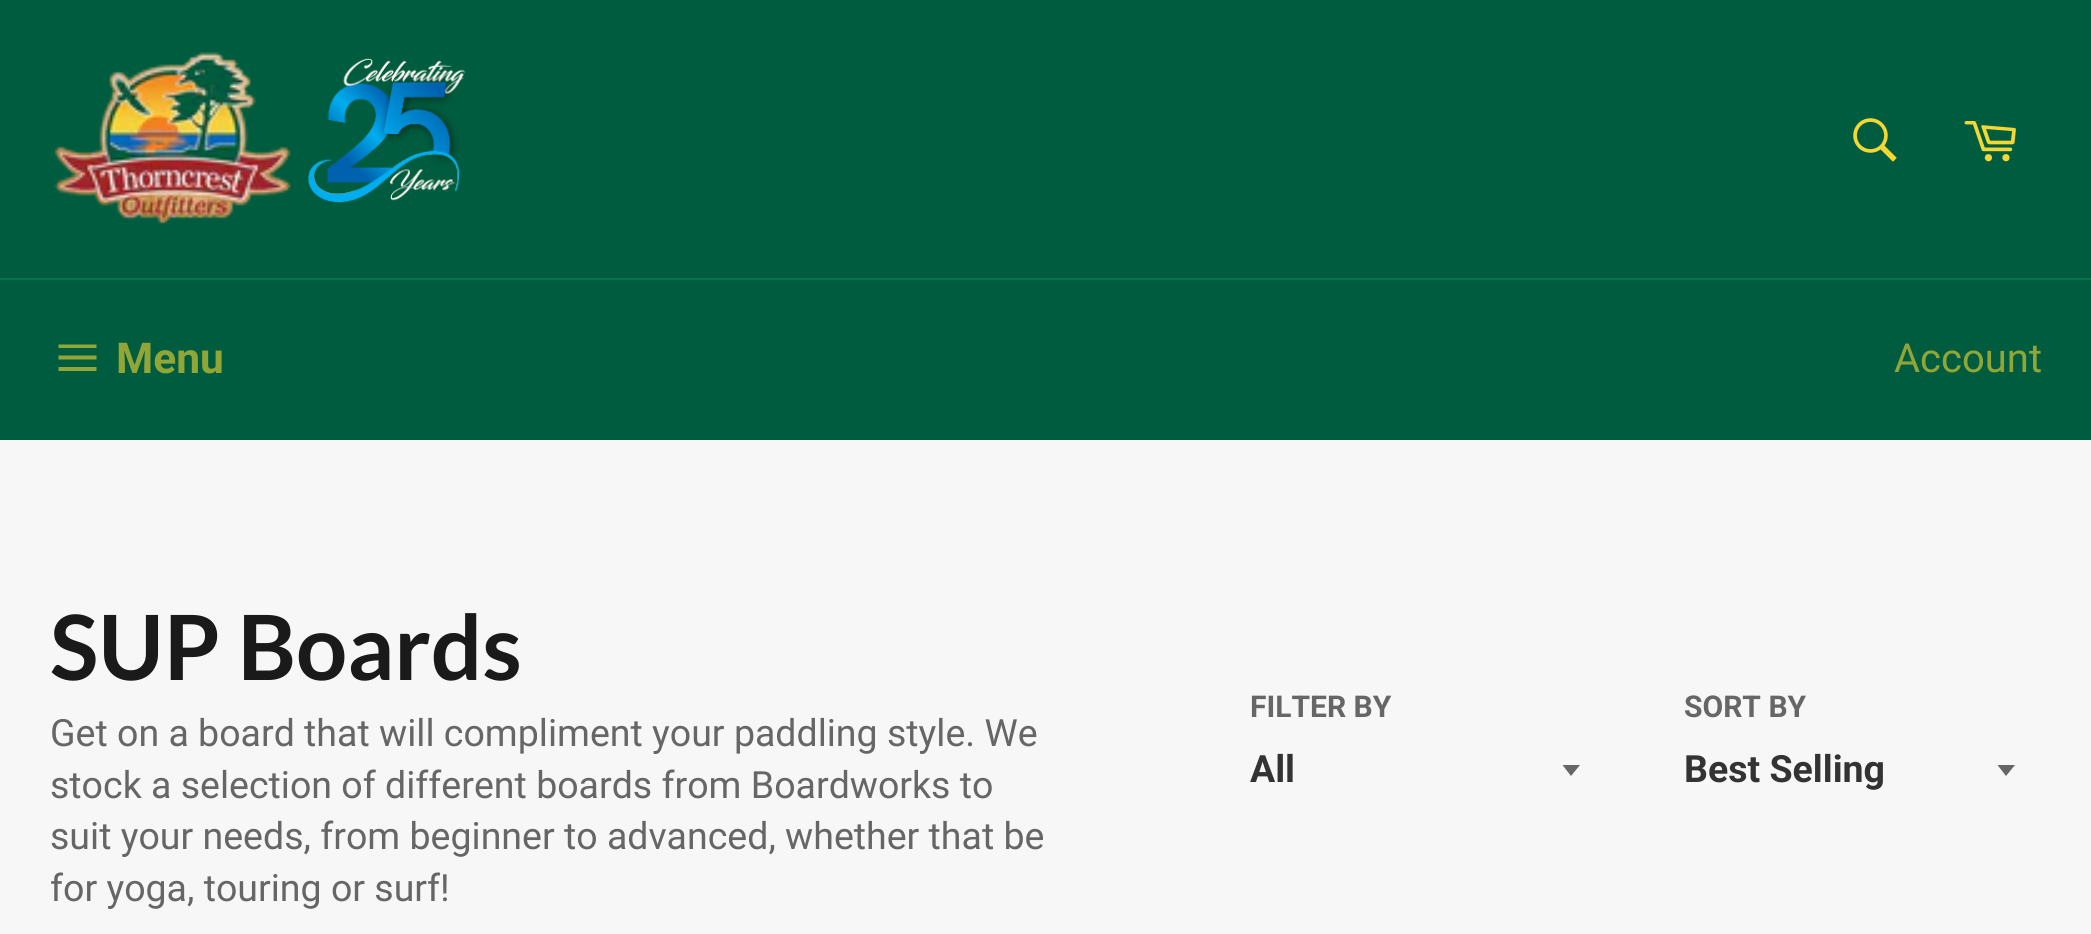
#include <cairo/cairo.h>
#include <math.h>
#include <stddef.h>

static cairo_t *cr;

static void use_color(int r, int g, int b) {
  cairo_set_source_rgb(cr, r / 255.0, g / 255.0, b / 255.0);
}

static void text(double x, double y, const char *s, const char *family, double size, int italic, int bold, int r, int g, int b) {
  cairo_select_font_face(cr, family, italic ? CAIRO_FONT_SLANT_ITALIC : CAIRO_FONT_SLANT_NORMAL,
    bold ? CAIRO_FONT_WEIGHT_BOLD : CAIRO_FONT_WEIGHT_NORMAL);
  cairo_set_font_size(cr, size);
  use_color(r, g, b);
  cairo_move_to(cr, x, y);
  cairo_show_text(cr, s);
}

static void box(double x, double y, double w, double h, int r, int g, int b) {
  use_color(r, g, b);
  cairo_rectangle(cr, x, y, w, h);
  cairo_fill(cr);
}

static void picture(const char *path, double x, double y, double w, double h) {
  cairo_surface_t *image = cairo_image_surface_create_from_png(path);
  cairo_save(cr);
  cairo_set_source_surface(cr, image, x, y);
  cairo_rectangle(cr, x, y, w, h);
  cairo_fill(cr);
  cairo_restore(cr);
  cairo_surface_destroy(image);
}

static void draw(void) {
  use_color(247, 247, 247);
  cairo_paint(cr);
  box(0, 0, 2091, 278, 0, 92, 62);
  picture("img_01.png", 54, 52, 237, 173);
  picture("img_02.png", 307, 58, 159, 145);
  picture("img_03.png", 1853, 118, 44, 44);
  picture("img_04.png", 1964, 121, 52, 41);
  box(0, 278, 2091, 2, 0, 118, 79);
  box(0, 280, 2091, 160, 0, 92, 62);
  use_color(146, 166, 56);
  cairo_new_path(cr);
  cairo_move_to(cr, 58.5, 355.5);
  cairo_line_to(cr, 96.5, 355.5);
  cairo_line_to(cr, 96.5, 359.5);
  cairo_line_to(cr, 58.5, 359.5);
  cairo_close_path(cr);
  cairo_move_to(cr, 58.5, 344.5);
  cairo_line_to(cr, 96.5, 344.5);
  cairo_line_to(cr, 96.5, 348);
  cairo_line_to(cr, 58.5, 348);
  cairo_close_path(cr);
  cairo_move_to(cr, 58.5, 367);
  cairo_line_to(cr, 96.5, 367);
  cairo_line_to(cr, 96.5, 371);
  cairo_line_to(cr, 58.5, 371);
  cairo_close_path(cr);
  cairo_fill(cr);
  use_color(102, 102, 102);
  cairo_new_path(cr);
  cairo_move_to(cr, 1562.5, 765);
  cairo_line_to(cr, 1571, 776);
  cairo_line_to(cr, 1580, 765);
  cairo_close_path(cr);
  cairo_fill(cr);
  cairo_new_path(cr);
  cairo_move_to(cr, 1997.5, 765);
  cairo_line_to(cr, 2006, 776);
  cairo_line_to(cr, 2015, 765);
  cairo_close_path(cr);
  cairo_fill(cr);
  text(116, 373, "Menu", "Roboto", 42.5, 0, 1, 146, 166, 56);
  text(1894, 372, "Account", "Roboto", 40, 0, 0, 146, 166, 56);
  text(50, 680, "SUP Boards", "Lato", 90, 0, 1, 26, 26, 26);
  text(50, 746, "Get on a board that will compliment your paddling style. We", "Roboto", 37.5, 0, 0, 102, 102, 102);
  text(50, 798, "stock a selection of different boards from Boardworks to", "Roboto", 37.5, 0, 0, 102, 102, 102);
  text(50, 849, "suit your needs, from beginner to advanced, whether that be", "Roboto", 37.5, 0, 0, 102, 102, 102);
  text(50, 901, "for yoga, touring or surf!", "Roboto", 37.5, 0, 0, 102, 102, 102);
  text(1250, 717, "FILTER BY", "Roboto", 30, 0, 1, 102, 102, 102);
  text(1250, 782, "All", "Roboto", 37.5, 0, 1, 51, 51, 51);
  text(1684, 717, "SORT BY", "Roboto", 30, 0, 1, 102, 102, 102);
  text(1684, 782, "Best Selling", "Roboto", 37.5, 0, 1, 51, 51, 51);
}

int main(void) {
  cairo_surface_t *surface = cairo_image_surface_create(CAIRO_FORMAT_RGB24, 2091, 934);
  cr = cairo_create(surface);
  cairo_font_options_t *options = cairo_font_options_create();
  cairo_font_options_set_hint_metrics(options, CAIRO_HINT_METRICS_OFF);
  cairo_font_options_set_hint_style(options, CAIRO_HINT_STYLE_NONE);
  cairo_set_font_options(cr, options);
  cairo_set_miter_limit(cr, 4);
  draw();
  cairo_surface_write_to_png(surface, "out.png");
  cairo_font_options_destroy(options);
  cairo_destroy(cr);
  cairo_surface_destroy(surface);
  return 0;
}
